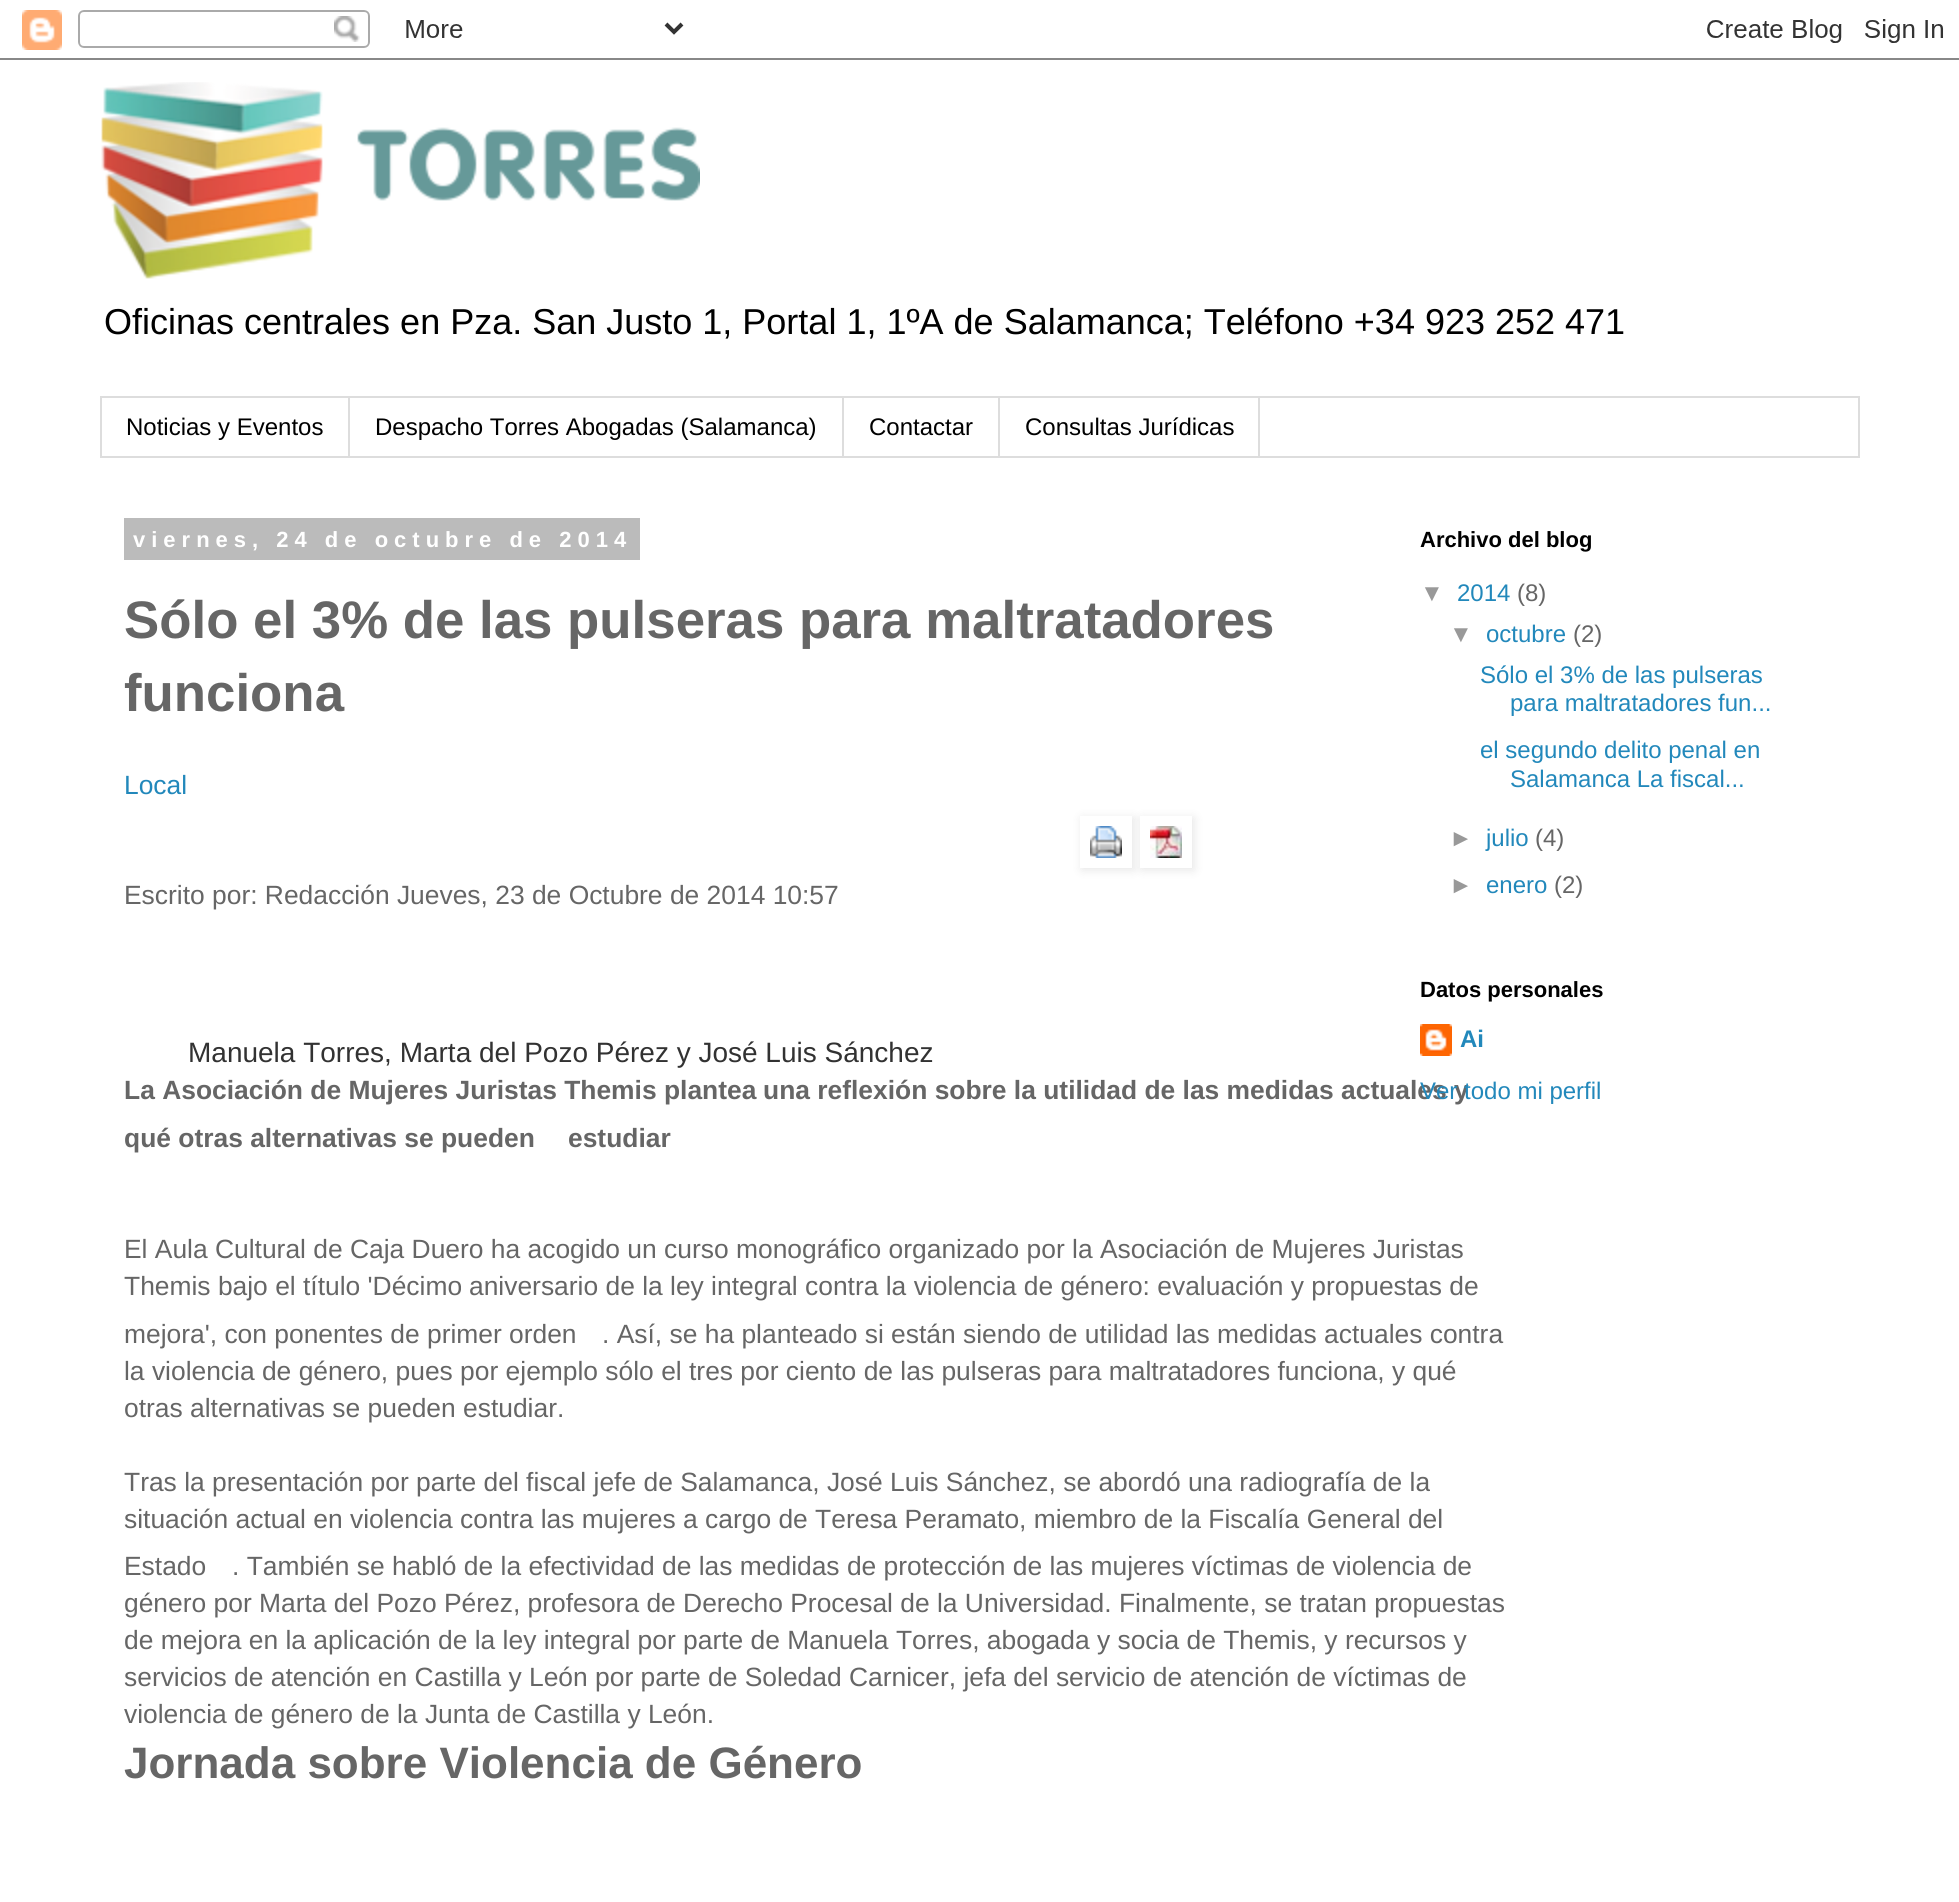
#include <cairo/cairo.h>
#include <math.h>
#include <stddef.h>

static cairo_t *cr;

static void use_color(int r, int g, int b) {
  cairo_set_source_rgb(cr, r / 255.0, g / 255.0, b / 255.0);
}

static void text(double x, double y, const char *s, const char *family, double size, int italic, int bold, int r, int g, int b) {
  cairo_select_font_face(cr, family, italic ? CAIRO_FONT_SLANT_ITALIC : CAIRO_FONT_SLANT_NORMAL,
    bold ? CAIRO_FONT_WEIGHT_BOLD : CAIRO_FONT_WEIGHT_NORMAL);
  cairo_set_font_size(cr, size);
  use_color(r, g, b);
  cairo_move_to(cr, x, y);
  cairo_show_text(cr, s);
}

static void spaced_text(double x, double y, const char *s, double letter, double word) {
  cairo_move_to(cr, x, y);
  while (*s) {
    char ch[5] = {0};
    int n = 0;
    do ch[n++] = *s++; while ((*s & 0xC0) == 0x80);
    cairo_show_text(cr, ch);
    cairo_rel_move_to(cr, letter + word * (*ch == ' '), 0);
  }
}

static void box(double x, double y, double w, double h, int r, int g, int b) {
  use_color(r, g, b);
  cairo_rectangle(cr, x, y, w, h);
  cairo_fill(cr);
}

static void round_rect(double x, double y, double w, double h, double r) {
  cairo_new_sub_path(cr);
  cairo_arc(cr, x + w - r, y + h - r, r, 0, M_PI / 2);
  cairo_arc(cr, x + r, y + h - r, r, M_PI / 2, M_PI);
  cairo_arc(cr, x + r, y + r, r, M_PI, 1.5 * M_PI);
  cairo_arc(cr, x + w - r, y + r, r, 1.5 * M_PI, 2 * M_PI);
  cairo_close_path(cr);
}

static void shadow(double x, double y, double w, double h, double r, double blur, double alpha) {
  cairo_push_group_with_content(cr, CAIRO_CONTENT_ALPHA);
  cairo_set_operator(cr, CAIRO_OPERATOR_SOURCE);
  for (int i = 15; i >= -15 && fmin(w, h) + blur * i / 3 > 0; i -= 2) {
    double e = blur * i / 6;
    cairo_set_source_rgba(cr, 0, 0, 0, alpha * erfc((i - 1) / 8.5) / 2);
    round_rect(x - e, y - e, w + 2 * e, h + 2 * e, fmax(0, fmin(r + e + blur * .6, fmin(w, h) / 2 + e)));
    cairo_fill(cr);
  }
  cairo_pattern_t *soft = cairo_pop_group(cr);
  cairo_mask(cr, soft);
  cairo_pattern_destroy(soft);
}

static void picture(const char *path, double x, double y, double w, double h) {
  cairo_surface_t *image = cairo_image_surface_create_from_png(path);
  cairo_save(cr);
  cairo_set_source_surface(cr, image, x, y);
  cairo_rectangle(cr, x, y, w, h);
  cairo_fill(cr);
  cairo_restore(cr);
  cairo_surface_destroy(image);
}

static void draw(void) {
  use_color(255, 255, 255);
  cairo_paint(cr);
  picture("img_01.png", 0, 10, 1959, 50);
  picture("img_02.png", 101, 82, 599, 197);
  cairo_rectangle(cr, 101, 397, 1758, 60);
  use_color(221, 221, 221);
  cairo_stroke(cr);
  box(348, 398, 2, 58, 221, 221, 221);
  box(842, 398, 2, 58, 221, 221, 221);
  box(998, 398, 2, 58, 221, 221, 221);
  box(1258, 398, 2, 58, 221, 221, 221);
  box(124, 518, 516, 42, 187, 187, 187);
  cairo_save(cr);
  cairo_set_fill_rule(cr, CAIRO_FILL_RULE_EVEN_ODD);
  cairo_new_path(cr);
  cairo_move_to(cr, 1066, 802);
  cairo_line_to(cr, 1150, 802);
  cairo_line_to(cr, 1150, 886);
  cairo_line_to(cr, 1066, 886);
  cairo_close_path(cr);
  cairo_move_to(cr, 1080, 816);
  cairo_line_to(cr, 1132, 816);
  cairo_line_to(cr, 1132, 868);
  cairo_line_to(cr, 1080, 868);
  cairo_close_path(cr);
  cairo_clip(cr);
  use_color(0, 0, 0);
  shadow(1082, 818, 52, 52, 0, 5, 0.1);
  cairo_restore(cr);
  picture("img_03.png", 1090, 826, 32, 32);
  use_color(0, 0, 0);
  shadow(1142, 818, 52, 52, 0, 5, 0.1);
  box(1140, 816, 52, 52, 255, 255, 255);
  picture("img_04.png", 1150, 826, 32, 32);
  picture("img_05.png", 1420, 1024, 32, 32);
  text(104, 334, "Oficinas centrales en Pza. San Justo 1, Portal 1, 1ºA de Salamanca; Teléfono +34 923 252 471", "Liberation Sans", 36, 0, 0, 0, 0, 0);
  text(126, 435, "Noticias y Eventos", "Liberation Sans", 24, 0, 0, 0, 0, 0);
  text(375, 435, "Despacho Torres Abogadas (Salamanca)", "Liberation Sans", 24, 0, 0, 0, 0, 0);
  text(869, 435, "Contactar", "Liberation Sans", 24, 0, 0, 0, 0, 0);
  text(1025, 435, "Consultas Jurídicas", "Liberation Sans", 24, 0, 0, 0, 0, 0);
  cairo_select_font_face(cr, "Liberation Sans", CAIRO_FONT_SLANT_NORMAL, CAIRO_FONT_WEIGHT_BOLD);
  cairo_set_font_size(cr, 22);
  use_color(255, 255, 255);
  spaced_text(133, 547, "viernes, 24 de octubre de 2014", 6, 0);
  text(124, 638, "Sólo el 3% de las pulseras para maltratadores", "Liberation Sans", 52.8, 0, 1, 102, 102, 102);
  text(124, 711, "funciona", "Liberation Sans", 52.8, 0, 1, 102, 102, 102);
  text(124, 794, "Local", "Liberation Sans", 26.4, 0, 0, 34, 136, 187);
  text(124, 904, "Escrito por: Redacción Jueves, 23 de Octubre de 2014 10:57", "Liberation Sans", 26.4, 0, 0, 102, 102, 102);
  text(188, 1062, "Manuela Torres, Marta del Pozo Pérez y José Luis Sánchez", "Liberation Sans", 28, 0, 0, 50, 50, 50);
  text(124, 1099, "La Asociación de Mujeres Juristas Themis plantea", "Liberation Sans", 26.4, 0, 1, 102, 102, 102);
  text(763, 1099, "una reflexión sobre la utilidad de las medidas actuales y", "Liberation Sans", 26.4, 0, 1, 102, 102, 102);
  text(124, 1147, "qué otras alternativas se pueden", "Liberation Sans", 26.4, 0, 1, 102, 102, 102);
  text(568, 1147, "estudiar", "Liberation Sans", 26.4, 0, 1, 102, 102, 102);
  text(124, 1258, "El Aula Cultural de Caja Duero ha acogido un curso monográfico organizado por la Asociación de Mujeres Juristas", "Liberation Sans", 26.4, 0, 0, 102, 102, 102);
  text(124, 1295, "Themis bajo el título 'Décimo", "Liberation Sans", 26.4, 0, 0, 102, 102, 102);
  text(469, 1295, "aniversario de la ley integral contra la violencia de género: evaluación y propuestas de", "Liberation Sans", 26.4, 0, 0, 102, 102, 102);
  text(124, 1343, "mejora', con ponentes de primer", "Liberation Sans", 26.4, 0, 0, 102, 102, 102);
  text(509, 1343, "orden", "Liberation Sans", 26.4, 0, 0, 102, 102, 102);
  text(602, 1343, ". Así, se ha planteado si están siendo de utilidad las medidas actuales contra", "Liberation Sans", 26.4, 0, 0, 102, 102, 102);
  text(124, 1380, "la violencia de género, pues por ejemplo sólo el tres por ciento de las pulseras para maltratadores funciona, y qué", "Liberation Sans", 26.4, 0, 0, 102, 102, 102);
  text(124, 1417, "otras alternativas se pueden estudiar.", "Liberation Sans", 26.4, 0, 0, 102, 102, 102);
  text(124, 1491, "Tras la presentación por parte del fiscal jefe de Salamanca, José Luis Sánchez, se abordó una radiografía de la", "Liberation Sans", 26.4, 0, 0, 102, 102, 102);
  text(124, 1528, "situación actual en violencia", "Liberation Sans", 26.4, 0, 0, 102, 102, 102);
  text(460, 1528, "contra las mujeres a cargo de Teresa Peramato, miembro de la Fiscalía General del", "Liberation Sans", 26.4, 0, 0, 102, 102, 102);
  text(124, 1575, "Estado", "Liberation Sans", 26.4, 0, 0, 102, 102, 102);
  text(232, 1575, ". También se habló de la efectividad de las medidas de protección de las mujeres víctimas de violencia de", "Liberation Sans", 26.4, 0, 0, 102, 102, 102);
  text(124, 1612, "género por Marta del Pozo Pérez, profesora de Derecho Procesal de la Universidad. Finalmente, se tratan propuestas", "Liberation Sans", 26.4, 0, 0, 102, 102, 102);
  text(124, 1649, "de mejora en la aplicación", "Liberation Sans", 26.4, 0, 0, 102, 102, 102);
  text(438, 1649, "de la ley integral por parte de Manuela Torres, abogada y socia de Themis, y recursos y", "Liberation Sans", 26.4, 0, 0, 102, 102, 102);
  text(124, 1686, "servicios de atención en Castilla y León por parte de Soledad Carnicer, jefa del servicio de atención de víctimas de", "Liberation Sans", 26.4, 0, 0, 102, 102, 102);
  text(124, 1723, "violencia de género de la Junta de Castilla y León.", "Liberation Sans", 26.4, 0, 0, 102, 102, 102);
  text(124, 1778, "Jornada sobre Violencia de Género", "Liberation Sans", 44, 0, 1, 102, 102, 102);
  text(1420, 547, "Archivo del blog", "Liberation Sans", 22, 0, 1, 0, 0, 0);
  text(1420, 601, "▼", "Liberation Sans", 24, 0, 0, 153, 153, 153);
  text(1457, 601, "2014", "Liberation Sans", 24, 0, 0, 34, 136, 187);
  text(1517, 601, "(8)", "Liberation Sans", 24, 0, 0, 102, 102, 102);
  text(1449, 642, "▼", "Liberation Sans", 24, 0, 0, 153, 153, 153);
  text(1486, 642, "octubre", "Liberation Sans", 24, 0, 0, 34, 136, 187);
  text(1573, 642, "(2)", "Liberation Sans", 24, 0, 0, 102, 102, 102);
  text(1480, 683, "Sólo el 3% de las pulseras", "Liberation Sans", 24, 0, 0, 34, 136, 187);
  text(1510, 711, "para maltratadores fun...", "Liberation Sans", 24, 0, 0, 34, 136, 187);
  text(1480, 758, "el segundo delito penal en", "Liberation Sans", 24, 0, 0, 34, 136, 187);
  text(1510, 787, "Salamanca La fiscal...", "Liberation Sans", 24, 0, 0, 34, 136, 187);
  text(1449, 846, "►", "Liberation Sans", 24, 0, 0, 153, 153, 153);
  text(1486, 846, "julio", "Liberation Sans", 24, 0, 0, 34, 136, 187);
  text(1535, 846, "(4)", "Liberation Sans", 24, 0, 0, 102, 102, 102);
  text(1449, 893, "►", "Liberation Sans", 24, 0, 0, 153, 153, 153);
  text(1486, 893, "enero", "Liberation Sans", 24, 0, 0, 34, 136, 187);
  text(1554, 893, "(2)", "Liberation Sans", 24, 0, 0, 102, 102, 102);
  text(1420, 997, "Datos personales", "Liberation Sans", 22, 0, 1, 0, 0, 0);
  text(1460, 1047, "Ai", "Liberation Sans", 24, 0, 1, 34, 136, 187);
  text(1420, 1099, "Ver todo mi perfil", "Liberation Sans", 24, 0, 0, 34, 136, 187);
}

int main(void) {
  cairo_surface_t *surface = cairo_image_surface_create(CAIRO_FORMAT_RGB24, 1959, 1902);
  cr = cairo_create(surface);
  cairo_font_options_t *options = cairo_font_options_create();
  cairo_font_options_set_hint_metrics(options, CAIRO_HINT_METRICS_OFF);
  cairo_font_options_set_hint_style(options, CAIRO_HINT_STYLE_NONE);
  cairo_set_font_options(cr, options);
  cairo_set_miter_limit(cr, 4);
  draw();
  cairo_surface_write_to_png(surface, "out.png");
  cairo_font_options_destroy(options);
  cairo_destroy(cr);
  cairo_surface_destroy(surface);
  return 0;
}
